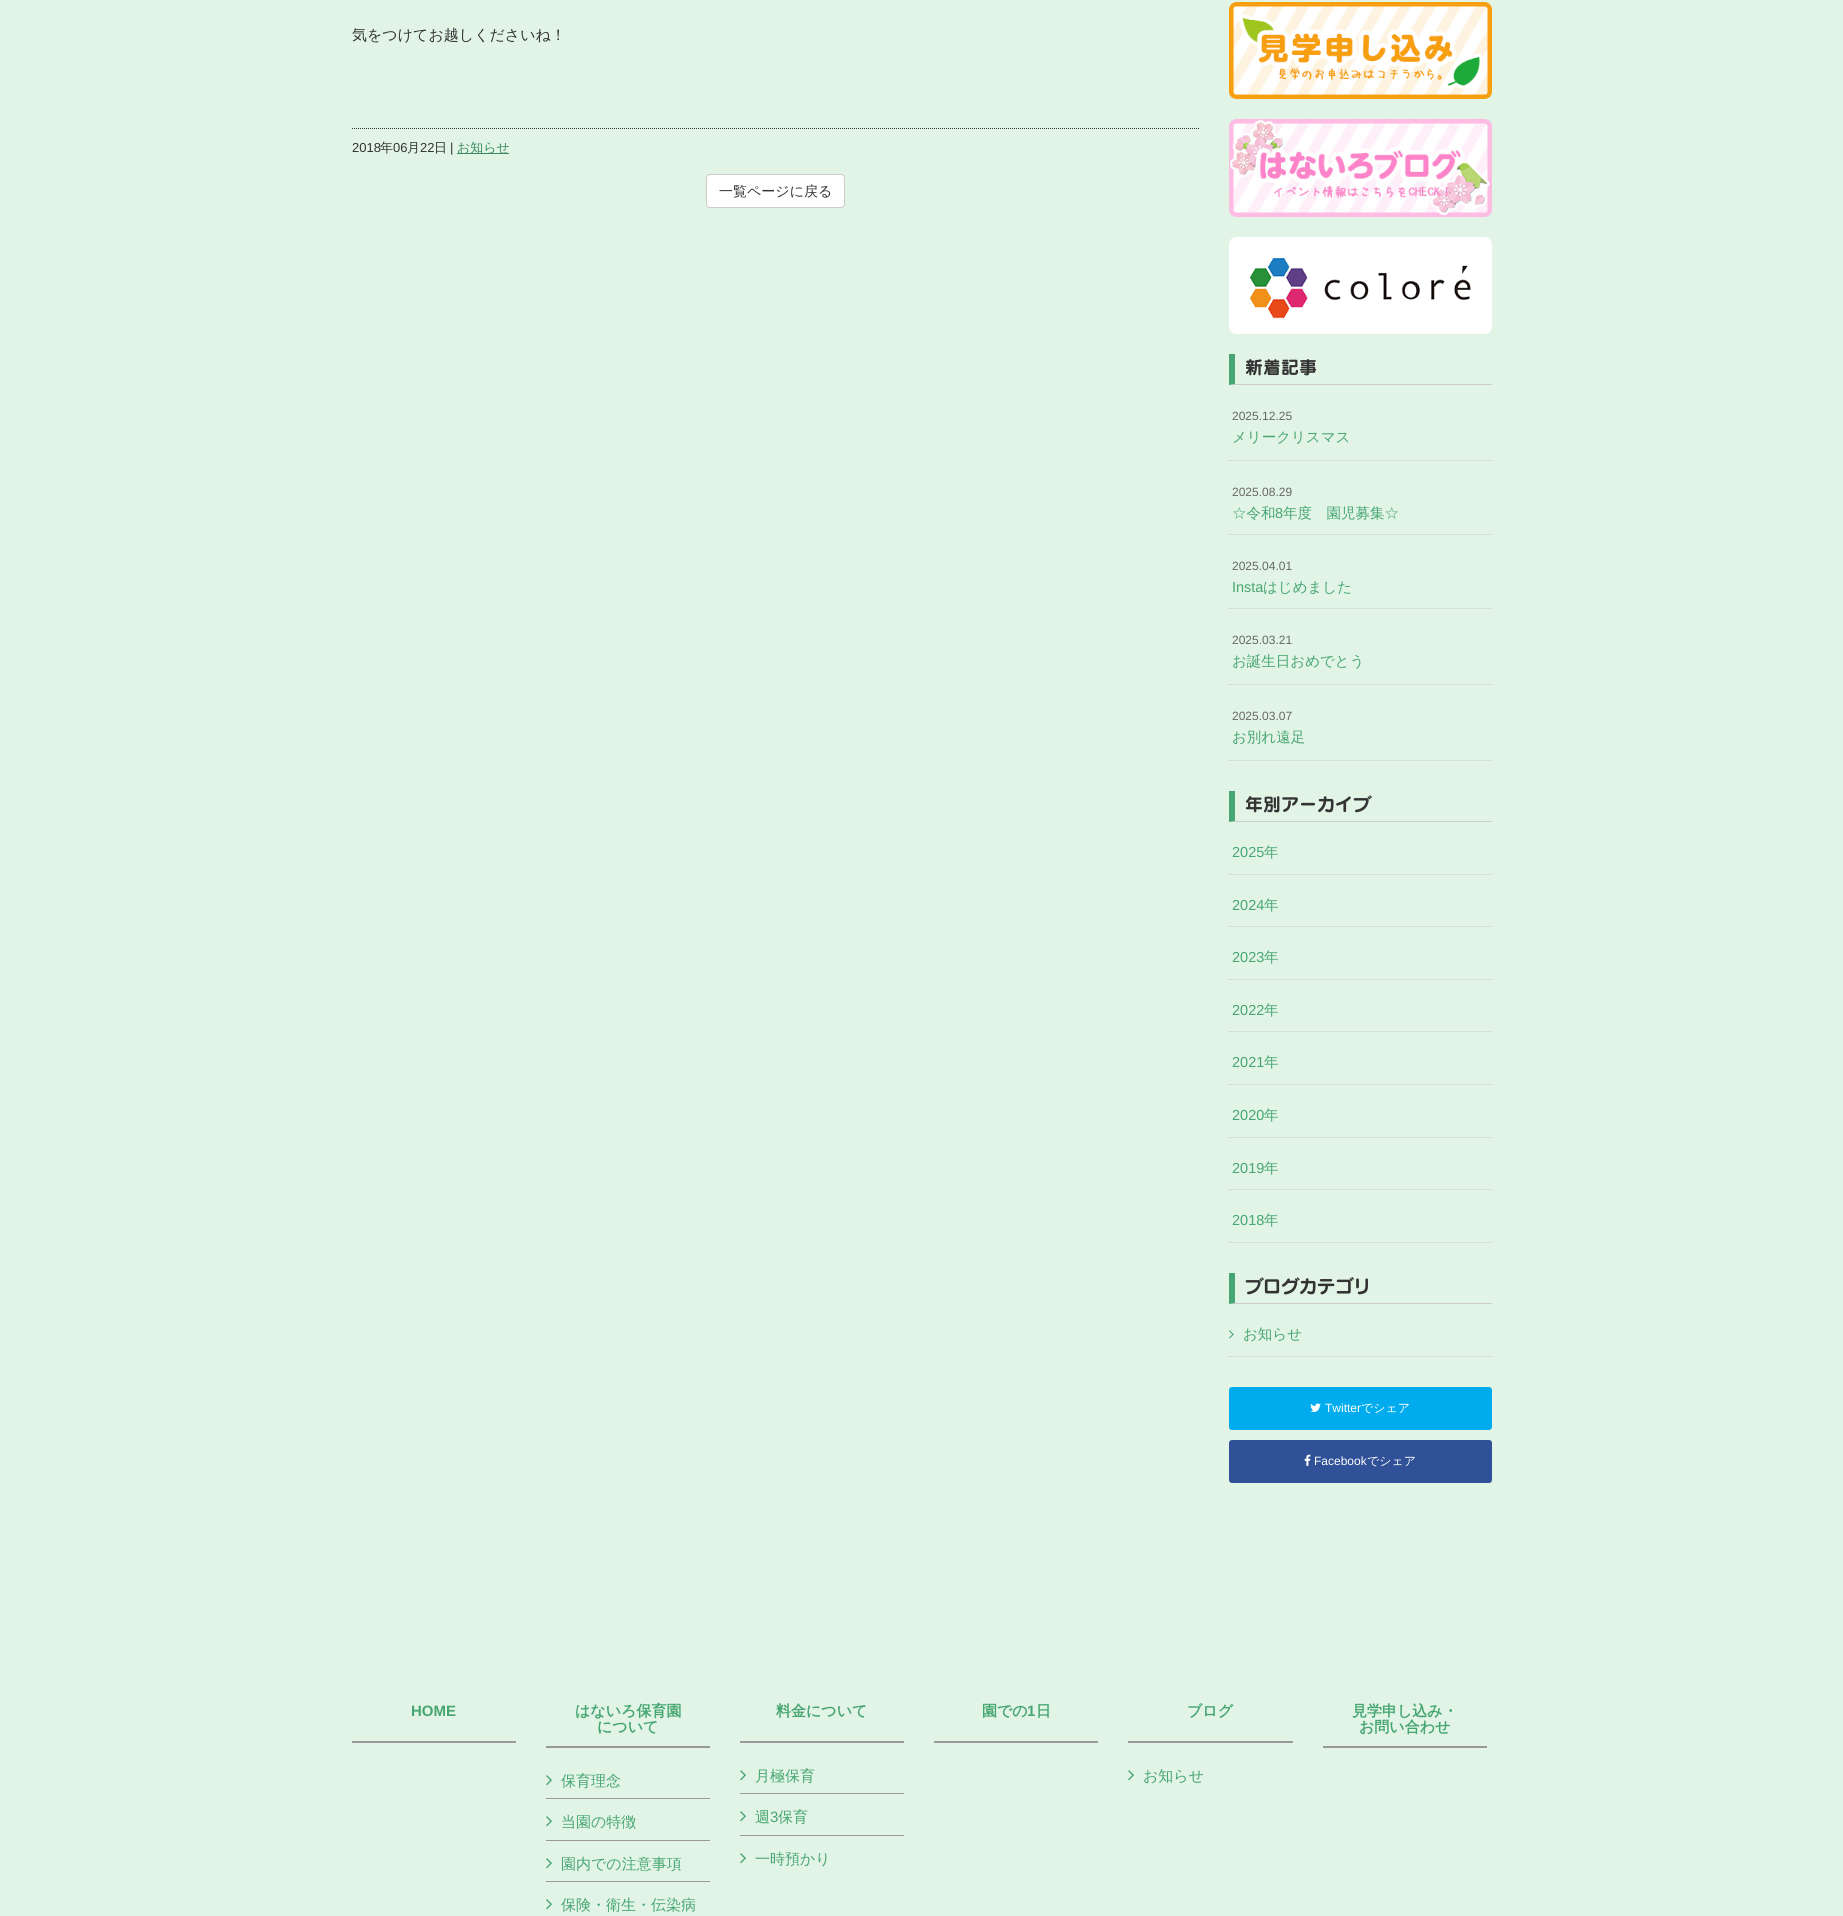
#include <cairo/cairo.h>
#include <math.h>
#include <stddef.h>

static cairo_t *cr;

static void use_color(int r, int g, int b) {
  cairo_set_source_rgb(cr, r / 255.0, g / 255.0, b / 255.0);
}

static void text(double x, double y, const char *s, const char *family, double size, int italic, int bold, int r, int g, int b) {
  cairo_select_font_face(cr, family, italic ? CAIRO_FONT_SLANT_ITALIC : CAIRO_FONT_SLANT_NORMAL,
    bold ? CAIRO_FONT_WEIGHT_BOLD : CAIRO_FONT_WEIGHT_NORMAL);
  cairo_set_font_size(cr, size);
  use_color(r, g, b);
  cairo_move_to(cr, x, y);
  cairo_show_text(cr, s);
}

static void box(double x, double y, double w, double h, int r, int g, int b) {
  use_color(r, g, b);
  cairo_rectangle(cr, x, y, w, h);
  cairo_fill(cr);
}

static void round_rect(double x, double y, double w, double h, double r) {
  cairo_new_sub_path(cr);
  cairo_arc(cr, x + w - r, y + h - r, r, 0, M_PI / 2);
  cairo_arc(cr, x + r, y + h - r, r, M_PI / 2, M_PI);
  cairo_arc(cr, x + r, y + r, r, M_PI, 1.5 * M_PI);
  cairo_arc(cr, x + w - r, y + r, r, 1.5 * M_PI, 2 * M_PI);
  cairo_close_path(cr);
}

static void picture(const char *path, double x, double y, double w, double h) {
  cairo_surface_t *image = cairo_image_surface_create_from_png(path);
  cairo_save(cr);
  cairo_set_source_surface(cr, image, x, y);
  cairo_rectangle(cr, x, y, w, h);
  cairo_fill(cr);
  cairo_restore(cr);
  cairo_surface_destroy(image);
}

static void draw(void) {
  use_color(226, 244, 230);
  cairo_paint(cr);
  cairo_new_path(cr);
  cairo_move_to(cr, 352, 128.5);
  cairo_line_to(cr, 1199, 128.5);
  use_color(51, 51, 51);
  cairo_set_line_width(cr, 1);
  cairo_set_dash(cr, (double[]){1, 1}, 2, 0);
  cairo_stroke(cr);
  box(457, 153, 52, 1, 59, 140, 96);
  use_color(255, 255, 255);
  round_rect(706.5, 174.5, 138, 33, 3.5);
  cairo_fill_preserve(cr);
  use_color(204, 204, 204);
  cairo_set_dash(cr, NULL, 0, 0);
  cairo_stroke(cr);
  picture("img_01.png", 1229, 2, 263, 97);
  picture("img_02.png", 1229, 119, 263, 98);
  picture("img_03.png", 1229, 237, 263, 97);
  cairo_new_path(cr);
  cairo_move_to(cr, 1492, 385);
  cairo_line_to(cr, 1229, 385);
  cairo_line_to(cr, 1235, 384);
  cairo_line_to(cr, 1492, 384);
  cairo_close_path(cr);
  cairo_fill(cr);
  use_color(70, 166, 113);
  cairo_new_path(cr);
  cairo_move_to(cr, 1229, 385);
  cairo_line_to(cr, 1229, 354);
  cairo_line_to(cr, 1235, 354);
  cairo_line_to(cr, 1235, 384);
  cairo_close_path(cr);
  cairo_fill(cr);
  cairo_new_path(cr);
  cairo_move_to(cr, 1229, 460.5);
  cairo_line_to(cr, 1492, 460.5);
  use_color(204, 204, 204);
  cairo_set_dash(cr, (double[]){1, 1}, 2, 0);
  cairo_stroke(cr);
  cairo_new_path(cr);
  cairo_move_to(cr, 1229, 534.5);
  cairo_line_to(cr, 1492, 534.5);
  cairo_stroke(cr);
  cairo_new_path(cr);
  cairo_move_to(cr, 1229, 608.5);
  cairo_line_to(cr, 1492, 608.5);
  cairo_stroke(cr);
  cairo_new_path(cr);
  cairo_move_to(cr, 1229, 684.5);
  cairo_line_to(cr, 1492, 684.5);
  cairo_stroke(cr);
  cairo_new_path(cr);
  cairo_move_to(cr, 1229, 760.5);
  cairo_line_to(cr, 1492, 760.5);
  cairo_stroke(cr);
  cairo_new_path(cr);
  cairo_move_to(cr, 1492, 822);
  cairo_line_to(cr, 1229, 822);
  cairo_line_to(cr, 1235, 821);
  cairo_line_to(cr, 1492, 821);
  cairo_close_path(cr);
  cairo_fill(cr);
  use_color(70, 166, 113);
  cairo_new_path(cr);
  cairo_move_to(cr, 1229, 822);
  cairo_line_to(cr, 1229, 791);
  cairo_line_to(cr, 1235, 791);
  cairo_line_to(cr, 1235, 821);
  cairo_close_path(cr);
  cairo_fill(cr);
  cairo_new_path(cr);
  cairo_move_to(cr, 1229, 874.5);
  cairo_line_to(cr, 1492, 874.5);
  use_color(204, 204, 204);
  cairo_stroke(cr);
  cairo_new_path(cr);
  cairo_move_to(cr, 1229, 926.5);
  cairo_line_to(cr, 1492, 926.5);
  cairo_stroke(cr);
  cairo_new_path(cr);
  cairo_move_to(cr, 1229, 979.5);
  cairo_line_to(cr, 1492, 979.5);
  cairo_stroke(cr);
  cairo_new_path(cr);
  cairo_move_to(cr, 1229, 1031.5);
  cairo_line_to(cr, 1492, 1031.5);
  cairo_stroke(cr);
  cairo_new_path(cr);
  cairo_move_to(cr, 1229, 1084.5);
  cairo_line_to(cr, 1492, 1084.5);
  cairo_stroke(cr);
  cairo_new_path(cr);
  cairo_move_to(cr, 1229, 1137.5);
  cairo_line_to(cr, 1492, 1137.5);
  cairo_stroke(cr);
  cairo_new_path(cr);
  cairo_move_to(cr, 1229, 1189.5);
  cairo_line_to(cr, 1492, 1189.5);
  cairo_stroke(cr);
  cairo_new_path(cr);
  cairo_move_to(cr, 1229, 1242.5);
  cairo_line_to(cr, 1492, 1242.5);
  cairo_stroke(cr);
  cairo_new_path(cr);
  cairo_move_to(cr, 1492, 1304);
  cairo_line_to(cr, 1229, 1304);
  cairo_line_to(cr, 1235, 1303);
  cairo_line_to(cr, 1492, 1303);
  cairo_close_path(cr);
  cairo_fill(cr);
  use_color(70, 166, 113);
  cairo_new_path(cr);
  cairo_move_to(cr, 1229, 1304);
  cairo_line_to(cr, 1229, 1273);
  cairo_line_to(cr, 1235, 1273);
  cairo_line_to(cr, 1235, 1303);
  cairo_close_path(cr);
  cairo_fill(cr);
  cairo_new_path(cr);
  cairo_move_to(cr, 1229, 1356.5);
  cairo_line_to(cr, 1492, 1356.5);
  use_color(204, 204, 204);
  cairo_stroke(cr);
  picture("img_04.png", 1229, 1330, 5, 9);
  use_color(0, 172, 238);
  round_rect(1229, 1387, 263, 43, 3);
  cairo_fill(cr);
  picture("img_05.png", 1310, 1403, 11, 9);
  use_color(48, 80, 151);
  round_rect(1229, 1440, 263, 43, 3);
  cairo_fill(cr);
  picture("img_06.png", 1304, 1454, 7, 12);
  box(352, 1741, 164, 2, 153, 153, 153);
  box(546, 1746, 164, 2, 153, 153, 153);
  box(546, 1798, 164, 1, 153, 153, 153);
  picture("img_07.png", 546, 1775, 6, 11);
  box(546, 1840, 164, 1, 153, 153, 153);
  picture("img_07.png", 546, 1816, 6, 11);
  box(546, 1881, 164, 1, 153, 153, 153);
  picture("img_07.png", 546, 1858, 6, 11);
  picture("img_07.png", 546, 1899, 6, 11);
  box(740, 1741, 164, 2, 153, 153, 153);
  box(740, 1793, 164, 1, 153, 153, 153);
  picture("img_07.png", 740, 1770, 6, 11);
  box(740, 1835, 164, 1, 153, 153, 153);
  picture("img_07.png", 740, 1811, 6, 11);
  picture("img_07.png", 740, 1853, 6, 11);
  box(934, 1741, 164, 2, 153, 153, 153);
  box(1128, 1741, 165, 2, 153, 153, 153);
  picture("img_07.png", 1128, 1770, 6, 11);
  box(1323, 1746, 164, 2, 153, 153, 153);
  text(352, 40, "気をつけてお越しくださいね！", "WenQuanYi Zen Hei Medium", 15, 0, 0, 51, 51, 51);
  text(352, 152, "2018", "Liberation Sans", 13, 0, 0, 51, 51, 51);
  text(380, 152, "年", "WenQuanYi Zen Hei Medium", 13, 0, 0, 51, 51, 51);
  text(393, 152, "06", "Liberation Sans", 13, 0, 0, 51, 51, 51);
  text(407, 152, "月", "WenQuanYi Zen Hei Medium", 13, 0, 0, 51, 51, 51);
  text(420, 152, "22", "Liberation Sans", 13, 0, 0, 51, 51, 51);
  text(434, 152, "日", "WenQuanYi Zen Hei Medium", 13, 0, 0, 51, 51, 51);
  text(450, 152, "|", "Liberation Sans", 13, 0, 0, 51, 51, 51);
  text(457, 152, "お知らせ", "WenQuanYi Zen Hei Medium", 13, 0, 0, 59, 140, 96);
  text(719, 196, "一覧ページに戻る", "WenQuanYi Zen Hei Medium", 14, 0, 0, 51, 51, 51);
  text(1245, 374, "新着記事", "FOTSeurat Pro", 18, 0, 1, 51, 51, 51);
  text(1232, 420, "2025.12.25", "Liberation Sans", 12, 0, 0, 102, 102, 102);
  text(1232, 442, "メリークリスマス", "WenQuanYi Zen Hei Medium", 14.5, 0, 0, 70, 166, 113);
  text(1232, 496, "2025.08.29", "Liberation Sans", 12, 0, 0, 102, 102, 102);
  text(1232, 518, "☆令和", "WenQuanYi Zen Hei Medium", 14.5, 0, 0, 70, 166, 113);
  text(1275, 518, "8", "Liberation Sans", 14.5, 0, 0, 70, 166, 113);
  text(1283, 518, "年度　園児募集☆", "WenQuanYi Zen Hei Medium", 14.5, 0, 0, 70, 166, 113);
  text(1232, 570, "2025.04.01", "Liberation Sans", 12, 0, 0, 102, 102, 102);
  text(1232, 592, "Insta", "Liberation Sans", 14.5, 0, 0, 70, 166, 113);
  text(1263, 592, "はじめました", "WenQuanYi Zen Hei Medium", 14.5, 0, 0, 70, 166, 113);
  text(1232, 644, "2025.03.21", "Liberation Sans", 12, 0, 0, 102, 102, 102);
  text(1232, 666, "お誕生日おめでとう", "WenQuanYi Zen Hei Medium", 14.5, 0, 0, 70, 166, 113);
  text(1232, 720, "2025.03.07", "Liberation Sans", 12, 0, 0, 102, 102, 102);
  text(1232, 742, "お別れ遠足", "WenQuanYi Zen Hei Medium", 14.5, 0, 0, 70, 166, 113);
  text(1245, 811, "年別アーカイブ", "FOTSeurat Pro", 18, 0, 1, 51, 51, 51);
  text(1232, 857, "2025", "Liberation Sans", 14.5, 0, 0, 70, 166, 113);
  text(1264, 857, "年", "WenQuanYi Zen Hei Medium", 14.5, 0, 0, 70, 166, 113);
  text(1232, 910, "2024", "Liberation Sans", 14.5, 0, 0, 70, 166, 113);
  text(1264, 910, "年", "WenQuanYi Zen Hei Medium", 14.5, 0, 0, 70, 166, 113);
  text(1232, 962, "2023", "Liberation Sans", 14.5, 0, 0, 70, 166, 113);
  text(1264, 962, "年", "WenQuanYi Zen Hei Medium", 14.5, 0, 0, 70, 166, 113);
  text(1232, 1015, "2022", "Liberation Sans", 14.5, 0, 0, 70, 166, 113);
  text(1264, 1015, "年", "WenQuanYi Zen Hei Medium", 14.5, 0, 0, 70, 166, 113);
  text(1232, 1067, "2021", "Liberation Sans", 14.5, 0, 0, 70, 166, 113);
  text(1264, 1067, "年", "WenQuanYi Zen Hei Medium", 14.5, 0, 0, 70, 166, 113);
  text(1232, 1120, "2020", "Liberation Sans", 14.5, 0, 0, 70, 166, 113);
  text(1264, 1120, "年", "WenQuanYi Zen Hei Medium", 14.5, 0, 0, 70, 166, 113);
  text(1232, 1173, "2019", "Liberation Sans", 14.5, 0, 0, 70, 166, 113);
  text(1264, 1173, "年", "WenQuanYi Zen Hei Medium", 14.5, 0, 0, 70, 166, 113);
  text(1232, 1225, "2018", "Liberation Sans", 14.5, 0, 0, 70, 166, 113);
  text(1264, 1225, "年", "WenQuanYi Zen Hei Medium", 14.5, 0, 0, 70, 166, 113);
  text(1245, 1293, "ブログカテゴリ", "FOTSeurat Pro", 18, 0, 1, 51, 51, 51);
  text(1243, 1339, "お知らせ", "WenQuanYi Zen Hei Medium", 14.5, 0, 0, 70, 166, 113);
  text(1325, 1412, "Twitter", "Liberation Sans", 12, 0, 0, 255, 255, 255);
  text(1361, 1412, "でシェア", "WenQuanYi Zen Hei Medium", 12, 0, 0, 255, 255, 255);
  text(1314, 1465, "Facebook", "Liberation Sans", 12, 0, 0, 255, 255, 255);
  text(1367, 1465, "でシェア", "WenQuanYi Zen Hei Medium", 12, 0, 0, 255, 255, 255);
  text(411, 1716, "HOME", "Liberation Sans", 15, 0, 1, 70, 166, 113);
  text(575, 1716, "はないろ保育園", "WenQuanYi Zen Hei", 15, 0, 1, 70, 166, 113);
  text(597, 1732, "について", "WenQuanYi Zen Hei", 15, 0, 1, 70, 166, 113);
  text(561, 1786, "保育理念", "WenQuanYi Zen Hei Medium", 15, 0, 0, 70, 166, 113);
  text(561, 1827, "当園の特徴", "WenQuanYi Zen Hei Medium", 15, 0, 0, 70, 166, 113);
  text(561, 1869, "園内での注意事項", "WenQuanYi Zen Hei Medium", 15, 0, 0, 70, 166, 113);
  text(561, 1910, "保険・衛生・伝染病", "WenQuanYi Zen Hei Medium", 15, 0, 0, 70, 166, 113);
  text(776, 1716, "料金について", "WenQuanYi Zen Hei", 15, 0, 1, 70, 166, 113);
  text(755, 1781, "月極保育", "WenQuanYi Zen Hei Medium", 15, 0, 0, 70, 166, 113);
  text(755, 1822, "週", "WenQuanYi Zen Hei Medium", 15, 0, 0, 70, 166, 113);
  text(770, 1822, "3", "Liberation Sans", 15, 0, 0, 70, 166, 113);
  text(778, 1822, "保育", "WenQuanYi Zen Hei Medium", 15, 0, 0, 70, 166, 113);
  text(755, 1864, "一時預かり", "WenQuanYi Zen Hei Medium", 15, 0, 0, 70, 166, 113);
  text(982, 1716, "園での", "WenQuanYi Zen Hei", 15, 0, 1, 70, 166, 113);
  text(1027, 1716, "1", "Liberation Sans", 15, 0, 1, 70, 166, 113);
  text(1036, 1716, "日", "WenQuanYi Zen Hei", 15, 0, 1, 70, 166, 113);
  text(1187, 1716, "ブログ", "WenQuanYi Zen Hei", 15, 0, 1, 70, 166, 113);
  text(1143, 1781, "お知らせ", "WenQuanYi Zen Hei Medium", 15, 0, 0, 70, 166, 113);
  text(1352, 1716, "見学申し込み・", "WenQuanYi Zen Hei", 15, 0, 1, 70, 166, 113);
  text(1359, 1732, "お問い合わせ", "WenQuanYi Zen Hei", 15, 0, 1, 70, 166, 113);
}

int main(void) {
  cairo_surface_t *surface = cairo_image_surface_create(CAIRO_FORMAT_RGB24, 1843, 1916);
  cr = cairo_create(surface);
  cairo_font_options_t *options = cairo_font_options_create();
  cairo_font_options_set_hint_metrics(options, CAIRO_HINT_METRICS_OFF);
  cairo_font_options_set_hint_style(options, CAIRO_HINT_STYLE_NONE);
  cairo_set_font_options(cr, options);
  cairo_set_miter_limit(cr, 4);
  draw();
  cairo_surface_write_to_png(surface, "out.png");
  cairo_font_options_destroy(options);
  cairo_destroy(cr);
  cairo_surface_destroy(surface);
  return 0;
}
